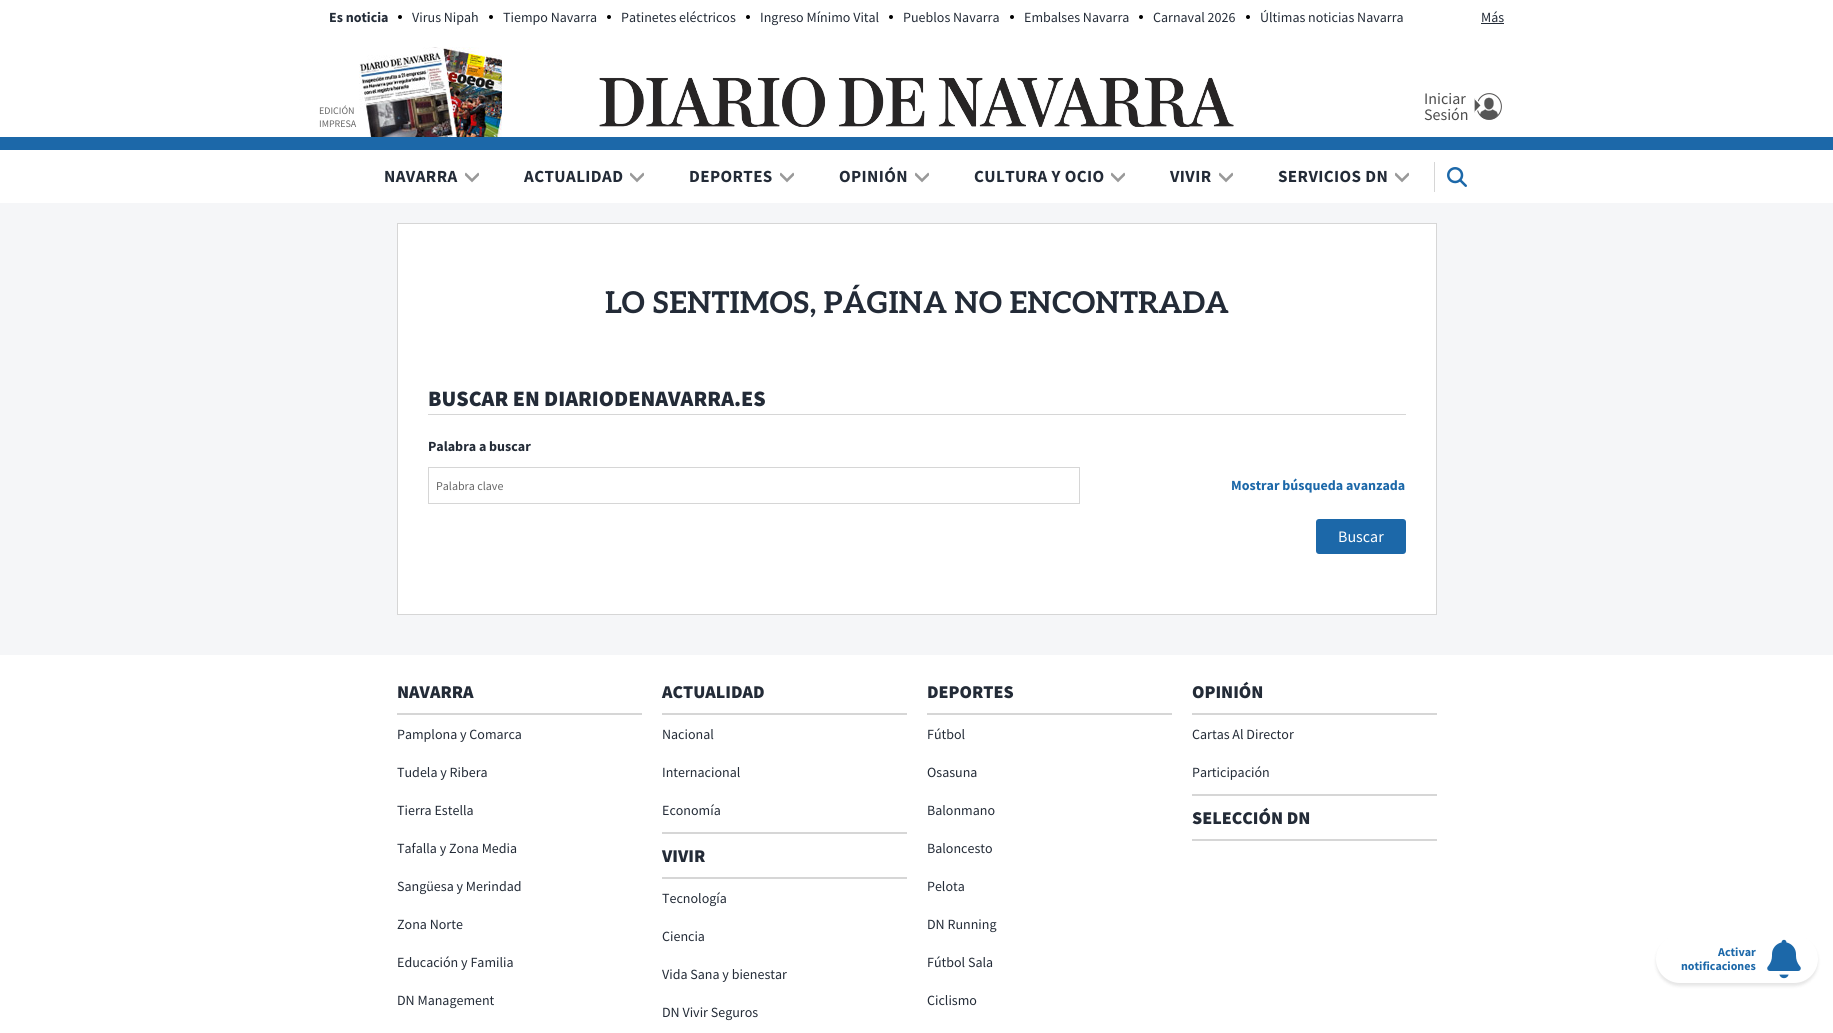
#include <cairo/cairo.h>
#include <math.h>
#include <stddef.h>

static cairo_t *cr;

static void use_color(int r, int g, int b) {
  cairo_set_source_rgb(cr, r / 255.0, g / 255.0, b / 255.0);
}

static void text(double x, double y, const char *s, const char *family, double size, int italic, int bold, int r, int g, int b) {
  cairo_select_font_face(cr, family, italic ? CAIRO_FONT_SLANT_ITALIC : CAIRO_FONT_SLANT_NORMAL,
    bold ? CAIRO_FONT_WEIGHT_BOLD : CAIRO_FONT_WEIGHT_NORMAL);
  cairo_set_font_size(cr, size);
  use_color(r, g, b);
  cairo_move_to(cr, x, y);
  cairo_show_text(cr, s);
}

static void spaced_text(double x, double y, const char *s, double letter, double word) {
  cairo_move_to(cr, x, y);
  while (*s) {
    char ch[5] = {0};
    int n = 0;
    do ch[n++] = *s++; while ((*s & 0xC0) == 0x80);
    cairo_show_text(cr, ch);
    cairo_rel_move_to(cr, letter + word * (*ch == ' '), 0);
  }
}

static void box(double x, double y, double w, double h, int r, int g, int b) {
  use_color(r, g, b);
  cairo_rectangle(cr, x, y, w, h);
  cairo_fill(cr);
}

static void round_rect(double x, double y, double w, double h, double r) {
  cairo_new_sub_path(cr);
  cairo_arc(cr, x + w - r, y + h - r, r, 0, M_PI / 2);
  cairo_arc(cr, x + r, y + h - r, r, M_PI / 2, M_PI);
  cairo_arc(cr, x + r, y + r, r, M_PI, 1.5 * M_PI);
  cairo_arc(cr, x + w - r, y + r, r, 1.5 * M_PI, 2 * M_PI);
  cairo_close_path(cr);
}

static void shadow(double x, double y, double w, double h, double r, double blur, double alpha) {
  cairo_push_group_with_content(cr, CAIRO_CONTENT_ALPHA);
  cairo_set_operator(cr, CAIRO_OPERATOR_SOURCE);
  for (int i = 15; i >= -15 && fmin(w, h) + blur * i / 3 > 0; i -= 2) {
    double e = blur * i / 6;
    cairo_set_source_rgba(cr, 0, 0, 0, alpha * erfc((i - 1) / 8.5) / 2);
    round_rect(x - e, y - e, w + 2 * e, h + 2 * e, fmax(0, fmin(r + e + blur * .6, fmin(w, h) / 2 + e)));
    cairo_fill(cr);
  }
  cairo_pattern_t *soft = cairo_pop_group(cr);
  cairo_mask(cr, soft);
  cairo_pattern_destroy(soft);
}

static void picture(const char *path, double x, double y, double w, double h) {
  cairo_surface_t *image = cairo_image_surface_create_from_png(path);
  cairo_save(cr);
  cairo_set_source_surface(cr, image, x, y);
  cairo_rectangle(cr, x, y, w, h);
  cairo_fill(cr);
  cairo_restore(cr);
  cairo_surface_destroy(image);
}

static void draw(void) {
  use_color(245, 246, 248);
  cairo_paint(cr);
  box(0, 0, 1833, 203, 255, 255, 255);
  use_color(0, 0, 0);
  cairo_arc(cr, 400, 17, 2, 0, 2 * M_PI);
  cairo_fill(cr);
  cairo_arc(cr, 491, 17, 2, 0, 2 * M_PI);
  cairo_fill(cr);
  cairo_arc(cr, 609, 17, 2, 0, 2 * M_PI);
  cairo_fill(cr);
  cairo_arc(cr, 748, 17, 2, 0, 2 * M_PI);
  cairo_fill(cr);
  cairo_arc(cr, 891, 17, 2, 0, 2 * M_PI);
  cairo_fill(cr);
  cairo_arc(cr, 1012, 17, 2, 0, 2 * M_PI);
  cairo_fill(cr);
  cairo_arc(cr, 1141, 17, 2, 0, 2 * M_PI);
  cairo_fill(cr);
  cairo_arc(cr, 1248, 17, 2, 0, 2 * M_PI);
  cairo_fill(cr);
  box(1481, 23, 23, 1, 35, 43, 55);
  picture("img_01.png", 359, 47, 143, 90);
  picture("img_02.png", 599, 77, 635, 50);
  picture("img_03.png", 1474, 93, 28, 27);
  box(0, 137, 1833, 13, 28, 104, 169);
  cairo_save(cr);
  cairo_rectangle(cr, 465, 170, 14, 14);
  cairo_clip(cr);
  cairo_new_path(cr);
  cairo_move_to(cr, 465, 173.5);
  cairo_line_to(cr, 472, 180.5);
  cairo_line_to(cr, 479, 173.5);
  use_color(153, 153, 153);
  cairo_set_line_width(cr, 2.6);
  cairo_stroke(cr);
  cairo_restore(cr);
  cairo_save(cr);
  cairo_rectangle(cr, 630, 170, 14, 14);
  cairo_clip(cr);
  cairo_new_path(cr);
  cairo_move_to(cr, 630, 173.5);
  cairo_line_to(cr, 637, 180.5);
  cairo_line_to(cr, 644, 173.5);
  use_color(153, 153, 153);
  cairo_set_line_width(cr, 2.6);
  cairo_stroke(cr);
  cairo_restore(cr);
  cairo_save(cr);
  cairo_rectangle(cr, 780, 170, 14, 14);
  cairo_clip(cr);
  cairo_new_path(cr);
  cairo_move_to(cr, 780, 173.5);
  cairo_line_to(cr, 787, 180.5);
  cairo_line_to(cr, 794, 173.5);
  use_color(153, 153, 153);
  cairo_set_line_width(cr, 2.6);
  cairo_stroke(cr);
  cairo_restore(cr);
  cairo_save(cr);
  cairo_rectangle(cr, 915, 170, 14, 14);
  cairo_clip(cr);
  cairo_new_path(cr);
  cairo_move_to(cr, 915, 173.5);
  cairo_line_to(cr, 922, 180.5);
  cairo_line_to(cr, 929, 173.5);
  use_color(153, 153, 153);
  cairo_set_line_width(cr, 2.6);
  cairo_stroke(cr);
  cairo_restore(cr);
  cairo_save(cr);
  cairo_rectangle(cr, 1111, 170, 14, 14);
  cairo_clip(cr);
  cairo_new_path(cr);
  cairo_move_to(cr, 1111, 173.5);
  cairo_line_to(cr, 1118, 180.5);
  cairo_line_to(cr, 1125, 173.5);
  use_color(153, 153, 153);
  cairo_set_line_width(cr, 2.6);
  cairo_stroke(cr);
  cairo_restore(cr);
  cairo_save(cr);
  cairo_rectangle(cr, 1219, 170, 14, 14);
  cairo_clip(cr);
  cairo_new_path(cr);
  cairo_move_to(cr, 1219, 173.5);
  cairo_line_to(cr, 1226, 180.5);
  cairo_line_to(cr, 1233, 173.5);
  use_color(153, 153, 153);
  cairo_set_line_width(cr, 2.6);
  cairo_stroke(cr);
  cairo_restore(cr);
  cairo_save(cr);
  cairo_rectangle(cr, 1395, 170, 14, 14);
  cairo_clip(cr);
  cairo_new_path(cr);
  cairo_move_to(cr, 1395, 173.5);
  cairo_line_to(cr, 1402, 180.5);
  cairo_line_to(cr, 1409, 173.5);
  use_color(153, 153, 153);
  cairo_set_line_width(cr, 2.6);
  cairo_stroke(cr);
  cairo_restore(cr);
  box(1434, 162, 1, 30, 214, 214, 214);
  picture("img_04.png", 1447, 167, 20, 20);
  use_color(255, 255, 255);
  cairo_rectangle(cr, 397.5, 223.5, 1039, 391);
  cairo_fill_preserve(cr);
  use_color(214, 214, 214);
  cairo_set_line_width(cr, 1);
  cairo_stroke(cr);
  box(428, 414, 978, 1, 214, 214, 214);
  cairo_rectangle(cr, 428.5, 467.5, 651, 36);
  cairo_stroke(cr);
  use_color(28, 104, 169);
  round_rect(1316, 519, 90, 35, 3);
  cairo_fill(cr);
  box(0, 655, 1833, 378, 255, 255, 255);
  box(397, 713, 245, 2, 214, 214, 214);
  box(662, 713, 245, 2, 214, 214, 214);
  box(662, 832, 245, 2, 214, 214, 214);
  box(662, 877, 245, 2, 214, 214, 214);
  box(927, 713, 245, 2, 214, 214, 214);
  box(1192, 713, 245, 2, 214, 214, 214);
  box(1192, 794, 245, 2, 214, 214, 214);
  box(1192, 839, 245, 2, 214, 214, 214);
  use_color(0, 0, 0);
  shadow(1656, 938, 162, 48, 24, 1.5, 0.1);
  use_color(255, 255, 255);
  round_rect(1656, 935, 162, 48, 24);
  cairo_fill(cr);
  picture("img_05.png", 1767, 939, 34, 40);
  text(329, 22, "Es noticia", "Source Sans Pro", 14, 0, 1, 35, 43, 55);
  text(412, 22, "Virus Nipah", "Source Sans Pro", 14, 0, 0, 35, 43, 55);
  text(503, 22, "Tiempo Navarra", "Source Sans Pro", 14, 0, 0, 35, 43, 55);
  text(621, 22, "Patinetes eléctricos", "Source Sans Pro", 14, 0, 0, 35, 43, 55);
  text(760, 22, "Ingreso Mínimo Vital", "Source Sans Pro", 14, 0, 0, 35, 43, 55);
  text(903, 22, "Pueblos Navarra", "Source Sans Pro", 14, 0, 0, 35, 43, 55);
  text(1024, 22, "Embalses Navarra", "Source Sans Pro", 14, 0, 0, 35, 43, 55);
  text(1153, 22, "Carnaval 2026", "Source Sans Pro", 14, 0, 0, 35, 43, 55);
  text(1260, 22, "Últimas noticias Navarra", "Source Sans Pro", 14, 0, 0, 35, 43, 55);
  text(1481, 22, "Más", "Source Sans Pro", 14, 0, 0, 35, 43, 55);
  text(319, 114, "EDICIÓN", "Source Sans Pro", 10, 0, 0, 102, 102, 102);
  text(319, 127, "IMPRESA", "Source Sans Pro", 10, 0, 0, 102, 102, 102);
  text(1424, 104, "Iniciar", "Source Sans Pro", 16, 0, 0, 76, 76, 76);
  text(1424, 120, "Sesión", "Source Sans Pro", 16, 0, 0, 76, 76, 76);
  cairo_select_font_face(cr, "Source Sans Pro", CAIRO_FONT_SLANT_NORMAL, CAIRO_FONT_WEIGHT_BOLD);
  cairo_set_font_size(cr, 17);
  use_color(35, 43, 55);
  spaced_text(384, 182, "NAVARRA", 0.4, 0);
  spaced_text(524, 182, "ACTUALIDAD", 0.4, 0);
  spaced_text(689, 182, "DEPORTES", 0.4, 0);
  spaced_text(839, 182, "OPINIÓN", 0.4, 0);
  spaced_text(974, 182, "CULTURA Y OCIO", 0.4, 0);
  spaced_text(1170, 182, "VIVIR", 0.4, 0);
  spaced_text(1278, 182, "SERVICIOS DN", 0.4, 0);
  text(605, 313, "LO SENTIMOS, PÁGINA NO ENCONTRADA", "Aleo", 30, 0, 1, 35, 43, 55);
  text(428, 406, "BUSCAR EN DIARIODENAVARRA.ES", "Source Sans Pro Black", 22, 0, 0, 35, 43, 55);
  text(428, 451, "Palabra a buscar", "Source Sans Pro", 14, 0, 1, 35, 43, 55);
  text(436, 490, "Palabra clave", "Source Sans Pro", 12, 0, 0, 102, 102, 102);
  text(1231, 490, "Mostrar búsqueda avanzada", "Source Sans Pro", 14, 0, 1, 28, 104, 169);
  text(1338, 542, "Buscar", "Source Sans Pro", 16, 0, 0, 255, 255, 255);
  text(397, 698, "NAVARRA", "Source Sans Pro Black", 18, 0, 0, 35, 43, 55);
  text(397, 739, "Pamplona y Comarca", "Source Sans Pro", 14, 0, 0, 35, 43, 55);
  text(397, 777, "Tudela y Ribera", "Source Sans Pro", 14, 0, 0, 35, 43, 55);
  text(397, 815, "Tierra Estella", "Source Sans Pro", 14, 0, 0, 35, 43, 55);
  text(397, 853, "Tafalla y Zona Media", "Source Sans Pro", 14, 0, 0, 35, 43, 55);
  text(397, 891, "Sangüesa y Merindad", "Source Sans Pro", 14, 0, 0, 35, 43, 55);
  text(397, 929, "Zona Norte", "Source Sans Pro", 14, 0, 0, 35, 43, 55);
  text(397, 967, "Educación y Familia", "Source Sans Pro", 14, 0, 0, 35, 43, 55);
  text(397, 1005, "DN Management", "Source Sans Pro", 14, 0, 0, 35, 43, 55);
  text(662, 698, "ACTUALIDAD", "Source Sans Pro Black", 18, 0, 0, 35, 43, 55);
  text(662, 739, "Nacional", "Source Sans Pro", 14, 0, 0, 35, 43, 55);
  text(662, 777, "Internacional", "Source Sans Pro", 14, 0, 0, 35, 43, 55);
  text(662, 815, "Economía", "Source Sans Pro", 14, 0, 0, 35, 43, 55);
  text(662, 862, "VIVIR", "Source Sans Pro Black", 18, 0, 0, 35, 43, 55);
  text(662, 903, "Tecnología", "Source Sans Pro", 14, 0, 0, 35, 43, 55);
  text(662, 941, "Ciencia", "Source Sans Pro", 14, 0, 0, 35, 43, 55);
  text(662, 979, "Vida Sana y bienestar", "Source Sans Pro", 14, 0, 0, 35, 43, 55);
  text(662, 1017, "DN Vivir Seguros", "Source Sans Pro", 14, 0, 0, 35, 43, 55);
  text(927, 698, "DEPORTES", "Source Sans Pro Black", 18, 0, 0, 35, 43, 55);
  text(927, 739, "Fútbol", "Source Sans Pro", 14, 0, 0, 35, 43, 55);
  text(927, 777, "Osasuna", "Source Sans Pro", 14, 0, 0, 35, 43, 55);
  text(927, 815, "Balonmano", "Source Sans Pro", 14, 0, 0, 35, 43, 55);
  text(927, 853, "Baloncesto", "Source Sans Pro", 14, 0, 0, 35, 43, 55);
  text(927, 891, "Pelota", "Source Sans Pro", 14, 0, 0, 35, 43, 55);
  text(927, 929, "DN Running", "Source Sans Pro", 14, 0, 0, 35, 43, 55);
  text(927, 967, "Fútbol Sala", "Source Sans Pro", 14, 0, 0, 35, 43, 55);
  text(927, 1005, "Ciclismo", "Source Sans Pro", 14, 0, 0, 35, 43, 55);
  text(1192, 698, "OPINIÓN", "Source Sans Pro Black", 18, 0, 0, 35, 43, 55);
  text(1192, 739, "Cartas Al Director", "Source Sans Pro", 14, 0, 0, 35, 43, 55);
  text(1192, 777, "Participación", "Source Sans Pro", 14, 0, 0, 35, 43, 55);
  text(1192, 824, "SELECCIÓN DN", "Source Sans Pro Black", 18, 0, 0, 35, 43, 55);
  text(1718, 956, "Activar", "Source Sans Pro", 12, 0, 1, 28, 104, 169);
  text(1681, 970, "notificaciones", "Source Sans Pro", 12, 0, 1, 28, 104, 169);
}

int main(void) {
  cairo_surface_t *surface = cairo_image_surface_create(CAIRO_FORMAT_RGB24, 1833, 1033);
  cr = cairo_create(surface);
  cairo_font_options_t *options = cairo_font_options_create();
  cairo_font_options_set_hint_metrics(options, CAIRO_HINT_METRICS_OFF);
  cairo_font_options_set_hint_style(options, CAIRO_HINT_STYLE_NONE);
  cairo_set_font_options(cr, options);
  cairo_set_miter_limit(cr, 4);
  draw();
  cairo_surface_write_to_png(surface, "out.png");
  cairo_font_options_destroy(options);
  cairo_destroy(cr);
  cairo_surface_destroy(surface);
  return 0;
}
